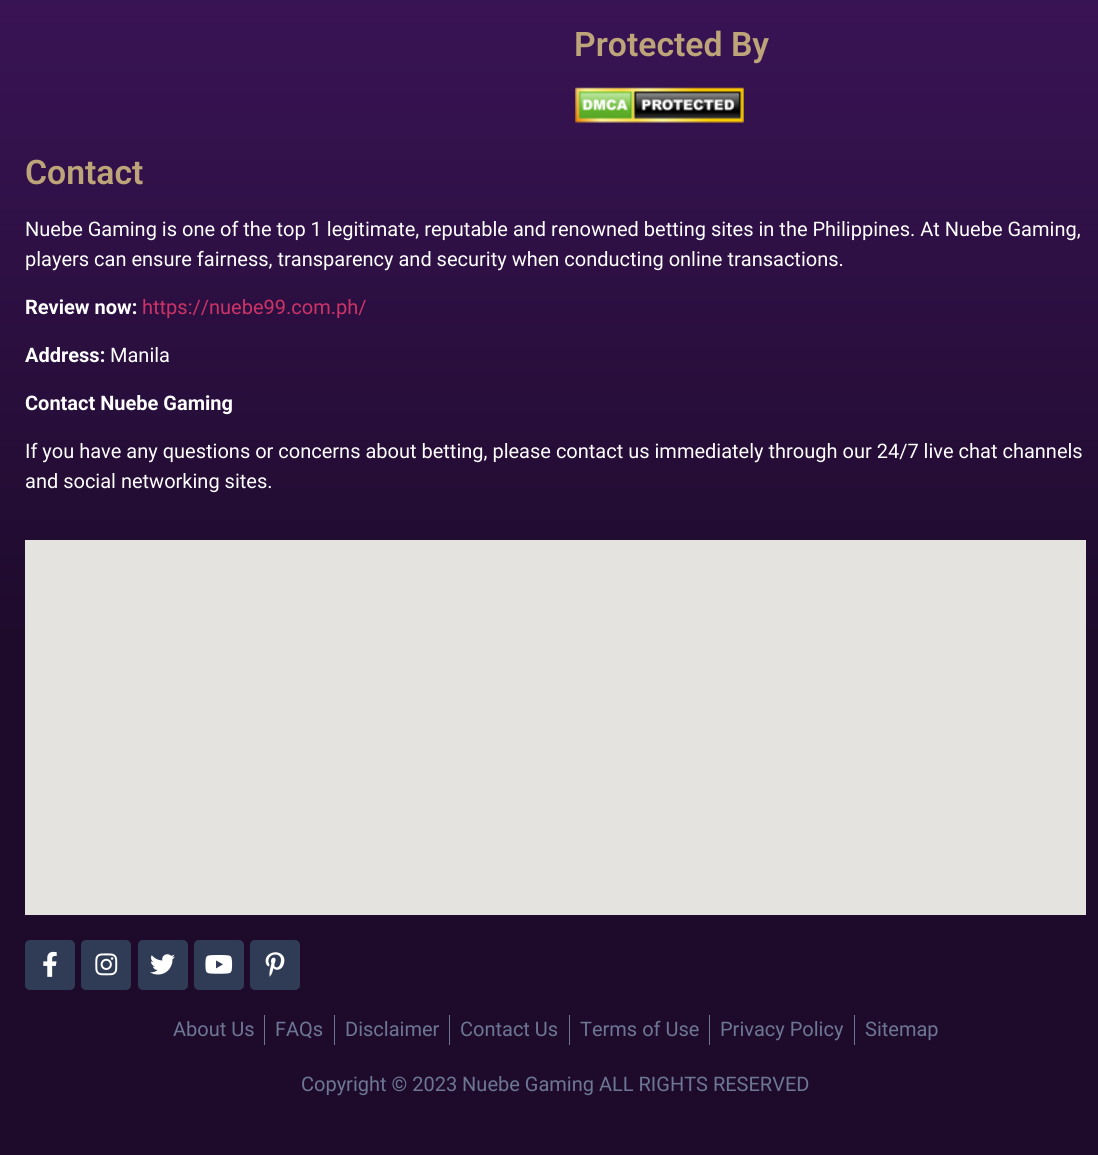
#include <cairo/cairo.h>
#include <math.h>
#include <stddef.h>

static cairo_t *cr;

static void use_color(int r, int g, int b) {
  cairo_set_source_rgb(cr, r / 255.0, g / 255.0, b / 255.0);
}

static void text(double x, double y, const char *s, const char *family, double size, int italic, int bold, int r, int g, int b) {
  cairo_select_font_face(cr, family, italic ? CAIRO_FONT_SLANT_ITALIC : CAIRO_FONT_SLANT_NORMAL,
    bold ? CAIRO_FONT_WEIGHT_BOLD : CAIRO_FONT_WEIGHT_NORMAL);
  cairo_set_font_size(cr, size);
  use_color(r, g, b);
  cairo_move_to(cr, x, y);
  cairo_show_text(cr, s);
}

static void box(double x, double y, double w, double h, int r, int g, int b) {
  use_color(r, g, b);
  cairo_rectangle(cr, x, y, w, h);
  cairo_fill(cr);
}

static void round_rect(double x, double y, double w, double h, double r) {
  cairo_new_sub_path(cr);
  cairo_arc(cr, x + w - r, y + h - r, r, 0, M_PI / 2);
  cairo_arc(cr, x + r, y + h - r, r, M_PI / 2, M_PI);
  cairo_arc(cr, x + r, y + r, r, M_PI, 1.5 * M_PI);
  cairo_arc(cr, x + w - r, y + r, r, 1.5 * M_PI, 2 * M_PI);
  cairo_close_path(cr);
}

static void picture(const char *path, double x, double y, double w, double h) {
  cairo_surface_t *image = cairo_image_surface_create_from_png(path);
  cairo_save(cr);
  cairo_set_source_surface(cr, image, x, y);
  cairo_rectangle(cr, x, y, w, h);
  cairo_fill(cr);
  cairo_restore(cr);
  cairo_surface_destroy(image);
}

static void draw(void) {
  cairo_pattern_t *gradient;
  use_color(255, 255, 255);
  cairo_paint(cr);
  gradient = cairo_pattern_create_linear(549, -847, 549, 1003);
  cairo_pattern_add_color_stop_rgba(gradient, 0.2, 0.306, 0.102, 0.455, 1);
  cairo_pattern_add_color_stop_rgba(gradient, 0.8, 0.118, 0.043, 0.173, 1);
  cairo_set_source(cr, gradient);
  cairo_pattern_destroy(gradient);
  cairo_rectangle(cr, 0, 0, 1098, 1003);
  cairo_fill(cr);
  picture("img_01.png", 575, 87, 169, 36);
  box(25, 540, 1061, 375, 229, 227, 223);
  use_color(48, 60, 85);
  round_rect(25, 940, 50, 50, 5);
  cairo_fill(cr);
  picture("img_02.png", 43, 951, 14, 26);
  round_rect(81, 940, 50, 50, 5);
  cairo_fill(cr);
  picture("img_03.png", 95, 953, 23, 23);
  round_rect(138, 940, 50, 50, 5);
  cairo_fill(cr);
  picture("img_04.png", 150, 954, 25, 21);
  round_rect(194, 940, 50, 50, 5);
  cairo_fill(cr);
  picture("img_05.png", 205, 955, 28, 19);
  round_rect(250, 940, 50, 50, 5);
  cairo_fill(cr);
  picture("img_06.png", 265, 952, 20, 25);
  box(0, 1003, 1098, 152, 30, 11, 44);
  box(264, 1015, 1, 30, 109, 118, 147);
  box(334, 1015, 1, 30, 109, 118, 147);
  box(449, 1015, 1, 30, 109, 118, 147);
  box(569, 1015, 1, 30, 109, 118, 147);
  box(709, 1015, 1, 30, 109, 118, 147);
  box(854, 1015, 1, 30, 109, 118, 147);
  text(574, 56, "Protected By", "Roboto SemiBold", 33.75, 0, 0, 189, 165, 121);
  text(25, 184, "Contact", "Roboto SemiBold", 33.75, 0, 0, 189, 165, 121);
  text(25, 236, "Nuebe Gaming is one of the top 1 legitimate, reputable and renowned betting sites in the Philippines. At Nuebe Gaming,", "Roboto", 20, 0, 0, 255, 255, 255);
  text(25, 266, "players can ensure fairness, transparency and security when conducting online transactions.", "Roboto", 20, 0, 0, 255, 255, 255);
  text(25, 314, "Review now:", "Roboto", 20, 0, 1, 255, 255, 255);
  text(142, 314, "https://nuebe99.com.ph/", "Roboto", 20, 0, 0, 204, 51, 102);
  text(25, 362, "Address:", "Roboto", 20, 0, 1, 255, 255, 255);
  text(110, 362, "Manila", "Roboto", 20, 0, 0, 255, 255, 255);
  text(25, 410, "Contact Nuebe Gaming", "Roboto", 20, 0, 1, 255, 255, 255);
  text(25, 458, "If you have any questions or concerns about betting, please contact us immediately through our 24/7 live chat channels", "Roboto", 20, 0, 0, 255, 255, 255);
  text(25, 488, "and social networking sites.", "Roboto", 20, 0, 0, 255, 255, 255);
  text(173, 1036, "About Us", "Roboto", 20, 0, 0, 109, 118, 147);
  text(275, 1036, "FAQs", "Roboto", 20, 0, 0, 109, 118, 147);
  text(345, 1036, "Disclaimer", "Roboto", 20, 0, 0, 109, 118, 147);
  text(460, 1036, "Contact Us", "Roboto", 20, 0, 0, 109, 118, 147);
  text(580, 1036, "Terms of Use", "Roboto", 20, 0, 0, 109, 118, 147);
  text(720, 1036, "Privacy Policy", "Roboto", 20, 0, 0, 109, 118, 147);
  text(865, 1036, "Sitemap", "Roboto", 20, 0, 0, 109, 118, 147);
  text(301, 1091, "Copyright © 2023 Nuebe Gaming ALL RIGHTS RESERVED", "Roboto", 20, 0, 0, 109, 118, 147);
}

int main(void) {
  cairo_surface_t *surface = cairo_image_surface_create(CAIRO_FORMAT_RGB24, 1098, 1155);
  cr = cairo_create(surface);
  cairo_font_options_t *options = cairo_font_options_create();
  cairo_font_options_set_hint_metrics(options, CAIRO_HINT_METRICS_OFF);
  cairo_font_options_set_hint_style(options, CAIRO_HINT_STYLE_NONE);
  cairo_set_font_options(cr, options);
  cairo_set_miter_limit(cr, 4);
  draw();
  cairo_surface_write_to_png(surface, "out.png");
  cairo_font_options_destroy(options);
  cairo_destroy(cr);
  cairo_surface_destroy(surface);
  return 0;
}
